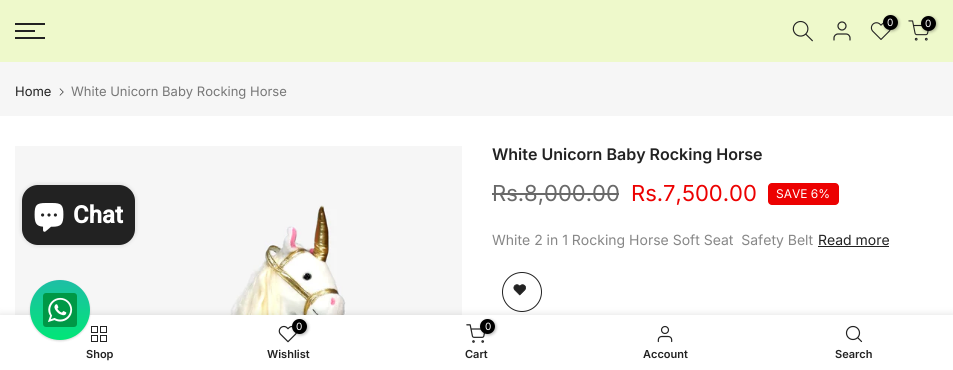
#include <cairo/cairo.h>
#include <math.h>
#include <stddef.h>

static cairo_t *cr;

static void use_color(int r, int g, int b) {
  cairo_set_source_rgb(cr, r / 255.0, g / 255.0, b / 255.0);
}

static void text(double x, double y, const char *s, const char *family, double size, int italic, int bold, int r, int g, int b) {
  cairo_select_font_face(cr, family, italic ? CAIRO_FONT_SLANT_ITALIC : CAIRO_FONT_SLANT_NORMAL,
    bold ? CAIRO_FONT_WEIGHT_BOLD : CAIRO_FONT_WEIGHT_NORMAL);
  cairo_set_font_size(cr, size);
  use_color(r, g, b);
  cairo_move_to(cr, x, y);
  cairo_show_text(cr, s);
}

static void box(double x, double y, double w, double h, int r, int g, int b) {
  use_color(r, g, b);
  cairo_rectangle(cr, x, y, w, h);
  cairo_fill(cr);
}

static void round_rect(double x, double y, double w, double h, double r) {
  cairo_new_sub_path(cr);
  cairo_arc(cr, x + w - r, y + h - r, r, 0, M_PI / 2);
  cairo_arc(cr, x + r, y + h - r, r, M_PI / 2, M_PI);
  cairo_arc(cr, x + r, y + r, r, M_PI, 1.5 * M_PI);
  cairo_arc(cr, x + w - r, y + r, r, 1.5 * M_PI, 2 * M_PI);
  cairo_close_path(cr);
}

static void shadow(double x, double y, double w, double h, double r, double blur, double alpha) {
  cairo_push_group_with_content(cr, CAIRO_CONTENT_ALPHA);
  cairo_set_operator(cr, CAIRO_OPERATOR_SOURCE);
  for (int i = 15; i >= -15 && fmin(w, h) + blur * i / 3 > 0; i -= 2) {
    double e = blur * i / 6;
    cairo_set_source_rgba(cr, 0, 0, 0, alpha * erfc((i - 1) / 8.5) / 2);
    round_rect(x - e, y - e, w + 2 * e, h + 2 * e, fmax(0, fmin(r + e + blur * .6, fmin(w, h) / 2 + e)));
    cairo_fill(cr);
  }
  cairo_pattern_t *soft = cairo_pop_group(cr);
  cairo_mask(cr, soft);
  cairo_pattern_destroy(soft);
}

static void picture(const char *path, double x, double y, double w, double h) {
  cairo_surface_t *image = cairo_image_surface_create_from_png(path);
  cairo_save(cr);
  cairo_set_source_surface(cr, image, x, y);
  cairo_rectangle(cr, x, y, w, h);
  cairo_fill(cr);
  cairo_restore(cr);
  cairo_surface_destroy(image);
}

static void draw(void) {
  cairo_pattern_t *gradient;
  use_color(255, 255, 255);
  cairo_paint(cr);
  box(0, 0, 953, 62, 238, 249, 203);
  box(15, 23, 30, 2, 34, 34, 34);
  box(15, 30, 20, 2, 34, 34, 34);
  box(15, 37, 30, 2, 34, 34, 34);
  picture("img_01.png", 792, 20, 21, 22);
  picture("img_02.png", 833, 21, 18, 20);
  picture("img_03.png", 870, 22, 21, 18);
  use_color(0, 0, 0);
  shadow(884, 16, 15, 15, 7.5, 1.5, 0.3);
  use_color(0, 0, 0);
  cairo_arc(cr, 890.5, 22.5, 7.5, 0, 2 * M_PI);
  cairo_fill(cr);
  picture("img_04.png", 908, 20, 21, 21);
  use_color(0, 0, 0);
  shadow(922, 17, 15, 15, 7.5, 1.5, 0.3);
  use_color(0, 0, 0);
  cairo_arc(cr, 928.5, 23.5, 7.5, 0, 2 * M_PI);
  cairo_fill(cr);
  box(0, 62, 953, 54, 246, 246, 246);
  picture("img_05.png", 59, 88, 5, 8);
  picture("img_06.png", 15, 146, 447, 169);
  box(492, 193, 127, 2, 105, 105, 105);
  use_color(236, 1, 1);
  round_rect(768, 183, 71, 22, 4);
  cairo_fill(cr);
  box(818, 246, 71, 1, 34, 34, 34);
  cairo_arc(cr, 522, 292, 19.5, 0, 2 * M_PI);
  cairo_set_line_width(cr, 1);
  cairo_stroke(cr);
  picture("img_07.png", 513, 284, 13, 12);
  use_color(0, 0, 0);
  shadow(22, 185, 113, 60, 16, 2.5, 0.15);
  use_color(34, 34, 34);
  round_rect(22, 185, 113, 60, 16);
  cairo_fill(cr);
  picture("img_08.png", 34, 203, 30, 29);
  use_color(0, 0, 0);
  shadow(0, 315, 953, 55, 0, 4.5, 0.12);
  box(0, 315, 953, 55, 255, 255, 255);
  picture("img_10.png", 91, 326, 16, 16);
  use_color(0, 0, 0);
  shadow(30, 281, 60, 60, 30, 1, 0.15);
  gradient = cairo_pattern_create_linear(60, 280, 60, 340);
  cairo_pattern_add_color_stop_rgba(gradient, 0, 0.118, 0.745, 0.647, 1);
  cairo_pattern_add_color_stop_rgba(gradient, 1, 0.004, 0.902, 0.467, 1);
  cairo_set_source(cr, gradient);
  cairo_pattern_destroy(gradient);
  cairo_arc(cr, 60, 310, 30, 0, 2 * M_PI);
  cairo_fill(cr);
  picture("img_09.png", 43, 293, 34, 34);
  picture("img_11.png", 278, 325, 19, 18);
  use_color(0, 0, 0);
  shadow(293, 320, 15, 15, 7.5, 1.5, 0.3);
  use_color(0, 0, 0);
  cairo_arc(cr, 299.5, 326.5, 7.5, 0, 2 * M_PI);
  cairo_fill(cr);
  picture("img_12.png", 466, 324, 19, 19);
  use_color(0, 0, 0);
  shadow(481, 320, 15, 15, 7.5, 1.5, 0.3);
  use_color(0, 0, 0);
  cairo_arc(cr, 487.5, 326.5, 7.5, 0, 2 * M_PI);
  cairo_fill(cr);
  picture("img_13.png", 657, 325, 16, 18);
  cairo_arc(cr, 853, 333, 6.5, 0, 2 * M_PI);
  use_color(34, 34, 34);
  cairo_set_line_width(cr, 1.2);
  cairo_stroke(cr);
  cairo_new_path(cr);
  cairo_move_to(cr, 861.5, 341.5);
  cairo_line_to(cr, 858, 338);
  cairo_set_line_cap(cr, CAIRO_LINE_CAP_ROUND);
  cairo_set_line_join(cr, CAIRO_LINE_JOIN_ROUND);
  cairo_stroke(cr);
  text(887, 26, "0", "Inter", 10, 0, 0, 255, 255, 255);
  text(925, 27, "0", "Inter", 10, 0, 0, 255, 255, 255);
  text(15, 96, "Home", "Inter", 13, 0, 0, 34, 34, 34);
  text(71, 96, "White Unicorn Baby Rocking Horse", "Inter", 13, 0, 0, 119, 119, 119);
  text(492, 160, "White Unicorn Baby Rocking Horse", "Inter SemiBold", 16, 0, 0, 34, 34, 34);
  text(492, 201, "Rs.8,000.00", "Inter", 22, 0, 0, 105, 105, 105);
  text(631, 201, "Rs.7,500.00", "Inter", 22, 0, 0, 236, 1, 1);
  text(776, 198, "SAVE 6%", "Inter", 12, 0, 0, 255, 255, 255);
  text(492, 245, "White 2 in 1 Rocking Horse Soft Seat  Safety Belt", "Inter", 14, 0, 0, 135, 135, 135);
  text(818, 245, "Read more", "Inter", 14, 0, 0, 34, 34, 34);
  text(73, 223, "Chat", "Roboto", 24, 0, 1, 255, 255, 255);
  text(86, 358, "Shop", "Inter SemiBold", 11, 0, 0, 34, 34, 34);
  text(296, 330, "0", "Inter", 10, 0, 0, 255, 255, 255);
  text(267, 358, "Wishlist", "Inter SemiBold", 11, 0, 0, 34, 34, 34);
  text(485, 330, "0", "Inter", 10, 0, 0, 255, 255, 255);
  text(465, 358, "Cart", "Inter SemiBold", 11, 0, 0, 34, 34, 34);
  text(643, 358, "Account", "Inter SemiBold", 11, 0, 0, 34, 34, 34);
  text(835, 358, "Search", "Inter SemiBold", 11, 0, 0, 34, 34, 34);
}

int main(void) {
  cairo_surface_t *surface = cairo_image_surface_create(CAIRO_FORMAT_RGB24, 953, 370);
  cr = cairo_create(surface);
  cairo_font_options_t *options = cairo_font_options_create();
  cairo_font_options_set_hint_metrics(options, CAIRO_HINT_METRICS_OFF);
  cairo_font_options_set_hint_style(options, CAIRO_HINT_STYLE_NONE);
  cairo_set_font_options(cr, options);
  cairo_set_miter_limit(cr, 4);
  draw();
  cairo_surface_write_to_png(surface, "out.png");
  cairo_font_options_destroy(options);
  cairo_destroy(cr);
  cairo_surface_destroy(surface);
  return 0;
}
